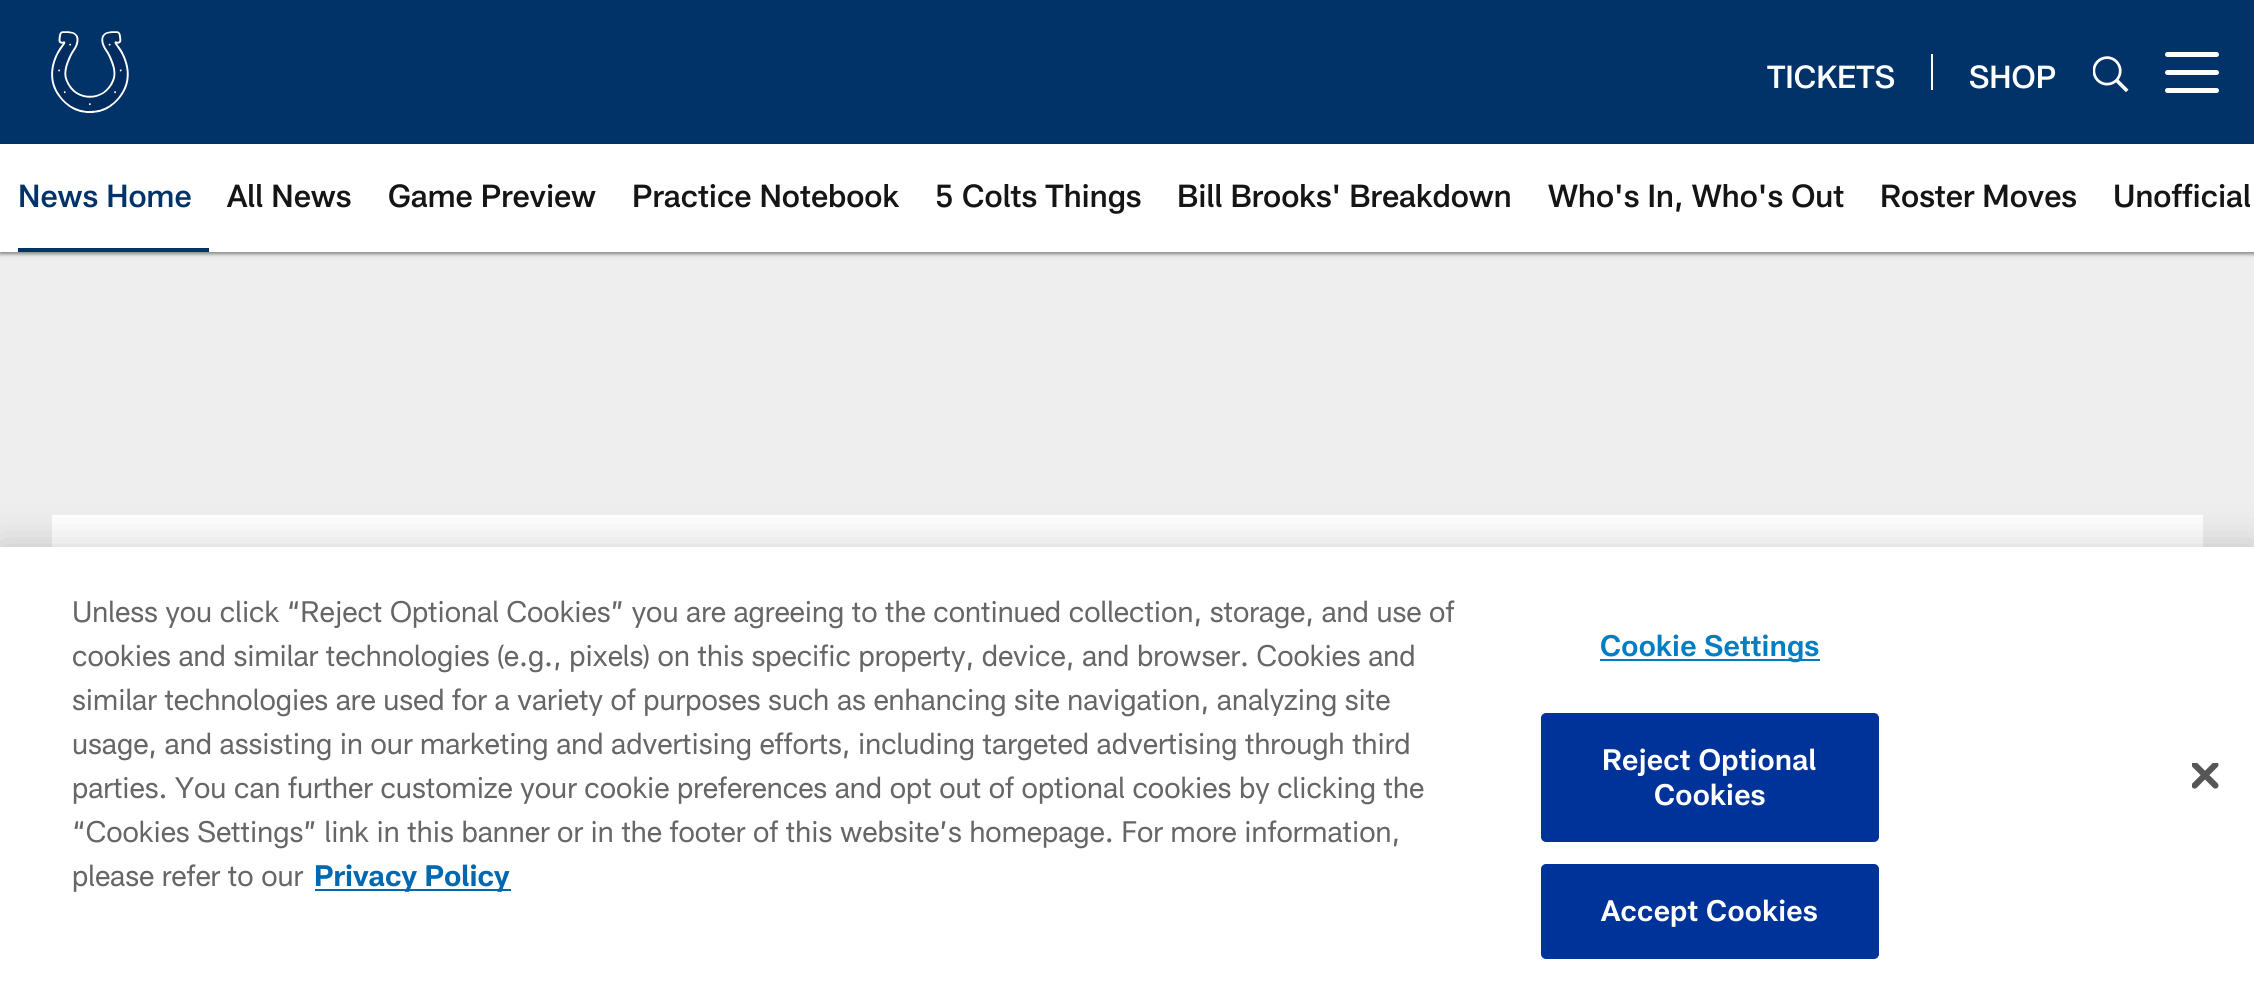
#include <cairo/cairo.h>
#include <math.h>
#include <stddef.h>

static cairo_t *cr;

static void use_color(int r, int g, int b) {
  cairo_set_source_rgb(cr, r / 255.0, g / 255.0, b / 255.0);
}

static void text(double x, double y, const char *s, const char *family, double size, int italic, int bold, int r, int g, int b) {
  cairo_select_font_face(cr, family, italic ? CAIRO_FONT_SLANT_ITALIC : CAIRO_FONT_SLANT_NORMAL,
    bold ? CAIRO_FONT_WEIGHT_BOLD : CAIRO_FONT_WEIGHT_NORMAL);
  cairo_set_font_size(cr, size);
  use_color(r, g, b);
  cairo_move_to(cr, x, y);
  cairo_show_text(cr, s);
}

static void spaced_text(double x, double y, const char *s, double letter, double word) {
  cairo_move_to(cr, x, y);
  while (*s) {
    char ch[5] = {0};
    int n = 0;
    do ch[n++] = *s++; while ((*s & 0xC0) == 0x80);
    cairo_show_text(cr, ch);
    cairo_rel_move_to(cr, letter + word * (*ch == ' '), 0);
  }
}

static void box(double x, double y, double w, double h, int r, int g, int b) {
  use_color(r, g, b);
  cairo_rectangle(cr, x, y, w, h);
  cairo_fill(cr);
}

static void round_rect(double x, double y, double w, double h, double r) {
  cairo_new_sub_path(cr);
  cairo_arc(cr, x + w - r, y + h - r, r, 0, M_PI / 2);
  cairo_arc(cr, x + r, y + h - r, r, M_PI / 2, M_PI);
  cairo_arc(cr, x + r, y + r, r, M_PI, 1.5 * M_PI);
  cairo_arc(cr, x + w - r, y + r, r, 1.5 * M_PI, 2 * M_PI);
  cairo_close_path(cr);
}

static void shadow(double x, double y, double w, double h, double r, double blur, double alpha) {
  cairo_push_group_with_content(cr, CAIRO_CONTENT_ALPHA);
  cairo_set_operator(cr, CAIRO_OPERATOR_SOURCE);
  for (int i = 15; i >= -15 && fmin(w, h) + blur * i / 3 > 0; i -= 2) {
    double e = blur * i / 6;
    cairo_set_source_rgba(cr, 0, 0, 0, alpha * erfc((i - 1) / 8.5) / 2);
    round_rect(x - e, y - e, w + 2 * e, h + 2 * e, fmax(0, fmin(r + e + blur * .6, fmin(w, h) / 2 + e)));
    cairo_fill(cr);
  }
  cairo_pattern_t *soft = cairo_pop_group(cr);
  cairo_mask(cr, soft);
  cairo_pattern_destroy(soft);
}

static void picture(const char *path, double x, double y, double w, double h) {
  cairo_surface_t *image = cairo_image_surface_create_from_png(path);
  cairo_save(cr);
  cairo_set_source_surface(cr, image, x, y);
  cairo_rectangle(cr, x, y, w, h);
  cairo_fill(cr);
  cairo_restore(cr);
  cairo_surface_destroy(image);
}

static void draw(void) {
  use_color(238, 238, 238);
  cairo_paint(cr);
  box(0, 0, 2254, 144, 1, 51, 105);
  picture("img_01.png", 51, 31, 78, 82);
  box(1931, 54, 2, 36, 255, 255, 255);
  picture("img_02.png", 2093, 56, 36, 36);
  round_rect(2165, 70, 54, 5, 2.5);
  cairo_fill(cr);
  round_rect(2165, 52, 54, 5, 2.5);
  cairo_fill(cr);
  round_rect(2165, 88, 54, 5, 2.5);
  cairo_fill(cr);
  use_color(0, 0, 0);
  shadow(0, 146, 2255, 108, 0, 2, 0.47);
  box(0, 144, 2254, 108, 255, 255, 255);
  box(18, 248, 191, 4, 1, 51, 105);
  box(52, 515, 2151, 32, 255, 255, 255);
  use_color(0, 0, 0);
  shadow(0, 547, 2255, 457, 0, 20, 0.2);
  box(0, 547, 2254, 456, 255, 255, 255);
  box(315, 889, 196, 2, 0, 103, 177);
  box(1600, 659, 220, 2, 0, 125, 195);
  use_color(0, 51, 153);
  round_rect(1542, 714, 336, 127, 4);
  cairo_fill_preserve(cr);
  cairo_stroke(cr);
  round_rect(1542, 865, 336, 93, 4);
  cairo_fill_preserve(cr);
  cairo_stroke(cr);
  picture("img_03.png", 2192, 763, 27, 26);
  text(1767, 88, "TICKETS", "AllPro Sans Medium", 31.5, 0, 0, 255, 255, 255);
  text(1969, 88, "SHOP", "AllPro Sans Medium", 31.5, 0, 0, 255, 255, 255);
  text(18, 207, "News Home", "AllPro Sans Medium", 31.5, 0, 0, 1, 51, 105);
  text(227, 207, "All News", "AllPro Sans Medium", 31.5, 0, 0, 21, 21, 21);
  text(388, 207, "Game Preview", "AllPro Sans Medium", 31.5, 0, 0, 21, 21, 21);
  text(632, 207, "Practice Notebook", "AllPro Sans Medium", 31.5, 0, 0, 21, 21, 21);
  text(935, 207, "5 Colts Things", "AllPro Sans Medium", 31.5, 0, 0, 21, 21, 21);
  text(1177, 207, "Bill Brooks' Breakdown", "AllPro Sans Medium", 31.5, 0, 0, 21, 21, 21);
  text(1548, 207, "Who's In, Who's Out", "AllPro Sans Medium", 31.5, 0, 0, 21, 21, 21);
  text(1880, 207, "Roster Moves", "AllPro Sans Medium", 31.5, 0, 0, 21, 21, 21);
  text(2113, 207, "Unofficial", "AllPro Sans Medium", 31.5, 0, 0, 21, 21, 21);
  text(72, 622, "Unless you click “Reject Optional Cookies” you are agreeing to the continued collection, storage, and use of", "AllPro Sans", 29.25, 0, 0, 102, 102, 102);
  text(72, 666, "cookies and similar technologies (e.g., pixels) on this specific property, device, and browser. Cookies and", "AllPro Sans", 29.25, 0, 0, 102, 102, 102);
  text(72, 710, "similar technologies are used for a variety of purposes such as enhancing site navigation, analyzing site", "AllPro Sans", 29.25, 0, 0, 102, 102, 102);
  text(72, 754, "usage, and assisting in our marketing and advertising efforts, including targeted advertising through third", "AllPro Sans", 29.25, 0, 0, 102, 102, 102);
  text(72, 798, "parties. You can further customize your cookie preferences and opt out of optional cookies by clicking the", "AllPro Sans", 29.25, 0, 0, 102, 102, 102);
  text(72, 842, "“Cookies Settings” link in this banner or in the footer of this website’s homepage. For more information,", "AllPro Sans", 29.25, 0, 0, 102, 102, 102);
  text(72, 886, "please refer to our", "AllPro Sans", 29.25, 0, 0, 102, 102, 102);
  text(314, 886, "Privacy Policy", "AllPro Sans", 29.25, 0, 1, 0, 103, 177);
  cairo_select_font_face(cr, "AllPro Sans SemiBold", CAIRO_FONT_SLANT_NORMAL, CAIRO_FONT_WEIGHT_NORMAL);
  use_color(0, 125, 195);
  spaced_text(1600, 656, "Cookie Settings", 0.25, 0);
  use_color(255, 255, 255);
  spaced_text(1602, 770, "Reject Optional", 0.25, 0);
  spaced_text(1654, 805, "Cookies", 0.25, 0);
  spaced_text(1601, 921, "Accept Cookies", 0.25, 0);
}

int main(void) {
  cairo_surface_t *surface = cairo_image_surface_create(CAIRO_FORMAT_RGB24, 2254, 1003);
  cr = cairo_create(surface);
  cairo_font_options_t *options = cairo_font_options_create();
  cairo_font_options_set_hint_metrics(options, CAIRO_HINT_METRICS_OFF);
  cairo_font_options_set_hint_style(options, CAIRO_HINT_STYLE_NONE);
  cairo_set_font_options(cr, options);
  cairo_set_miter_limit(cr, 4);
  draw();
  cairo_surface_write_to_png(surface, "out.png");
  cairo_font_options_destroy(options);
  cairo_destroy(cr);
  cairo_surface_destroy(surface);
  return 0;
}
